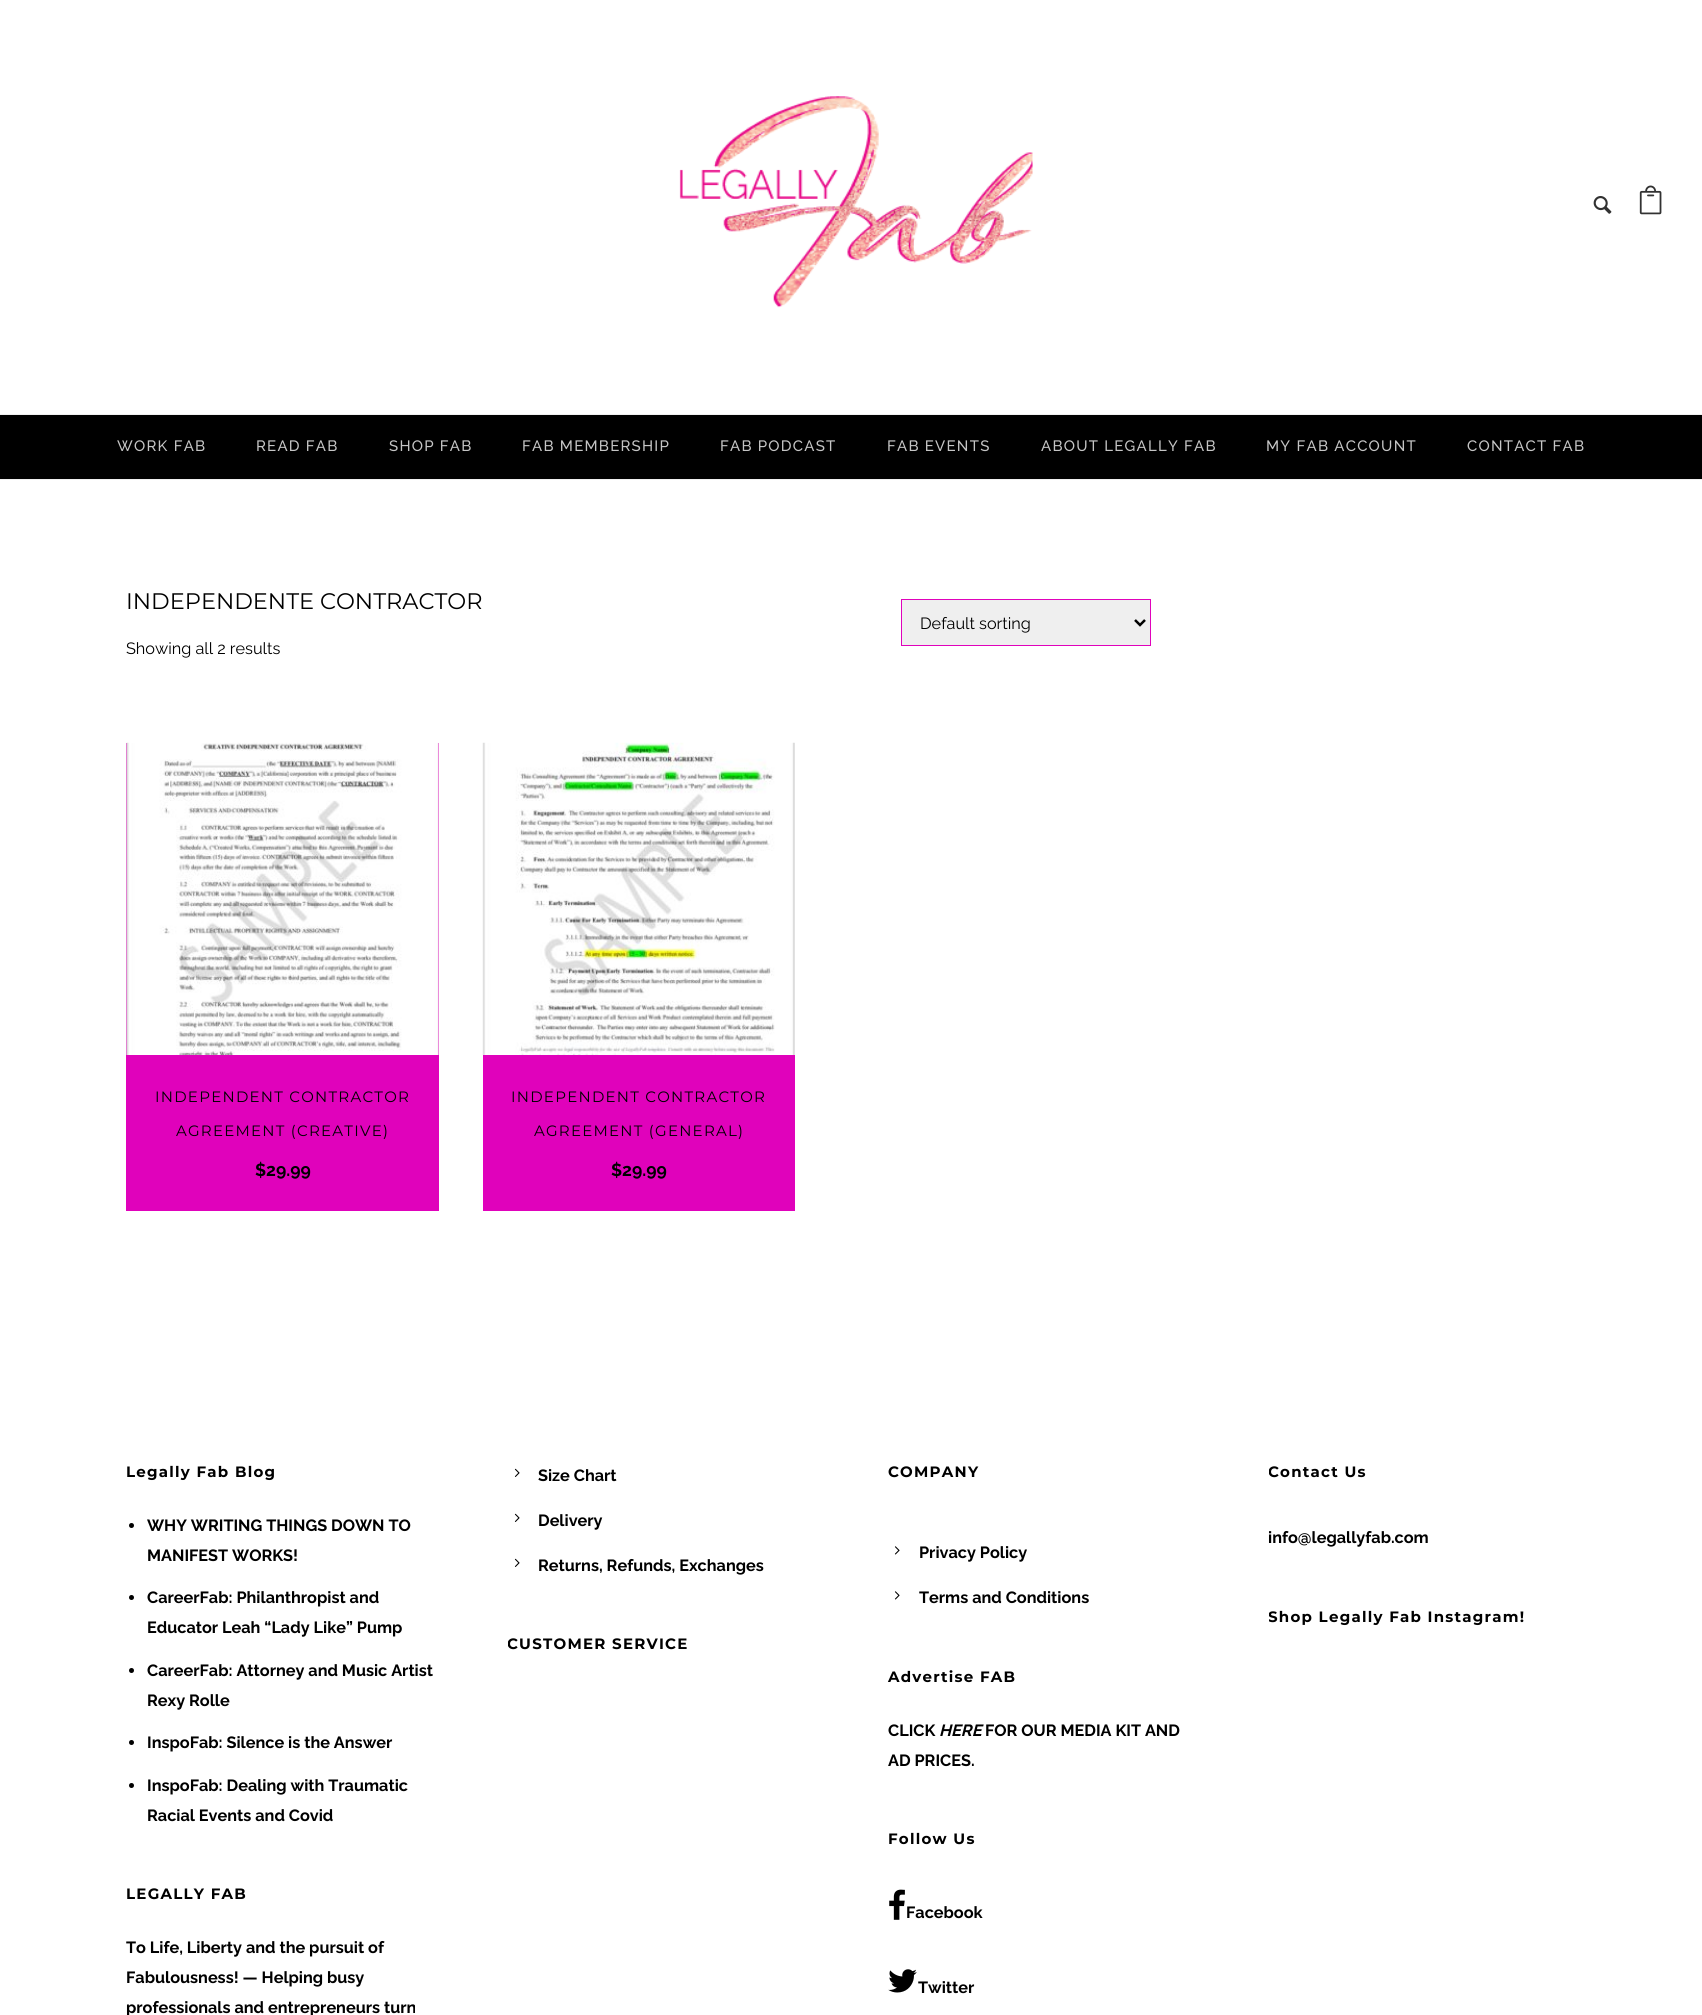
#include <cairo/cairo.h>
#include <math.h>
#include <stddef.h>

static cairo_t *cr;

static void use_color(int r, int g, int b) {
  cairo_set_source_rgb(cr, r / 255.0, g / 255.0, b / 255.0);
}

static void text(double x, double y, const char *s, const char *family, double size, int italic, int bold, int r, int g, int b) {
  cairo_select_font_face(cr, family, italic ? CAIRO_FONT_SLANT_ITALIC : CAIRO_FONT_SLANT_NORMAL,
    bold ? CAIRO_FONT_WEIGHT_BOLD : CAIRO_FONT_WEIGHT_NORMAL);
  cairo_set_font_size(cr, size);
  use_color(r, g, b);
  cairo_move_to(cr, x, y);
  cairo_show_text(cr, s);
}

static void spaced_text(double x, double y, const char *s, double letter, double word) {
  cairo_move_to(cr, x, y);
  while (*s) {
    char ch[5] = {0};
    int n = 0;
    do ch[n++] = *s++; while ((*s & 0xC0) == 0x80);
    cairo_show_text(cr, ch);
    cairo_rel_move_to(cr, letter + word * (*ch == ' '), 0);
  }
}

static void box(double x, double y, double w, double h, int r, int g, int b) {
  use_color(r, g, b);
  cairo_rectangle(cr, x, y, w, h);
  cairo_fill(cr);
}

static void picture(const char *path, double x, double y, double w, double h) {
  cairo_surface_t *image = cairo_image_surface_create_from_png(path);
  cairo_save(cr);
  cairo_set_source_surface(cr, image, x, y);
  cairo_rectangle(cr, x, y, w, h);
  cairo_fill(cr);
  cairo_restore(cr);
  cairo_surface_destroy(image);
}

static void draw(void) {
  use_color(255, 255, 255);
  cairo_paint(cr);
  picture("img_01.png", 679, 96, 354, 212);
  picture("img_02.png", 1593, 196, 19, 18);
  picture("img_03.png", 1639, 185, 23, 30);
  box(0, 415, 1702, 64, 0, 0, 0);
  box(0, 414, 1702, 1, 239, 239, 239);
  box(0, 479, 1702, 1, 239, 239, 239);
  cairo_rectangle(cr, 901.5, 599.5, 249, 46);
  cairo_fill_preserve(cr);
  use_color(224, 2, 187);
  cairo_set_line_width(cr, 1);
  cairo_stroke(cr);
  cairo_new_path(cr);
  cairo_move_to(cr, 1135, 620);
  cairo_line_to(cr, 1140, 625);
  cairo_line_to(cr, 1145, 620);
  use_color(0, 0, 0);
  cairo_set_line_width(cr, 2.5);
  cairo_stroke(cr);
  box(126, 743, 313, 468, 224, 2, 187);
  picture("img_04.png", 126, 742, 313, 313);
  box(483, 1055, 312, 156, 224, 2, 187);
  picture("img_05.png", 482, 742, 313, 313);
  use_color(0, 0, 0);
  cairo_arc(cr, 131.5, 1525.5, 2.5, 0, 2 * M_PI);
  cairo_fill(cr);
  cairo_arc(cr, 131.5, 1597.5, 2.5, 0, 2 * M_PI);
  cairo_fill(cr);
  cairo_arc(cr, 131.5, 1670.5, 2.5, 0, 2 * M_PI);
  cairo_fill(cr);
  cairo_arc(cr, 131.5, 1742.5, 2.5, 0, 2 * M_PI);
  cairo_fill(cr);
  cairo_arc(cr, 131.5, 1785.5, 2.5, 0, 2 * M_PI);
  cairo_fill(cr);
  picture("img_06.png", 514, 1468, 6, 9);
  picture("img_06.png", 514, 1513, 6, 9);
  picture("img_06.png", 514, 1558, 6, 9);
  picture("img_07.png", 894, 1546, 6, 9);
  picture("img_07.png", 894, 1591, 6, 9);
  picture("img_08.png", 889, 1889, 16, 31);
  picture("img_09.png", 888, 1969, 29, 24);
  cairo_select_font_face(cr, "Raleway Medium", CAIRO_FONT_SLANT_NORMAL, CAIRO_FONT_WEIGHT_NORMAL);
  cairo_set_font_size(cr, 15);
  use_color(197, 197, 197);
  spaced_text(117, 451, "WORK FAB", 1.25, 0);
  spaced_text(256, 451, "READ FAB", 1.25, 0);
  spaced_text(389, 451, "SHOP FAB", 1.25, 0);
  spaced_text(522, 451, "FAB MEMBERSHIP", 1.25, 0);
  spaced_text(720, 451, "FAB PODCAST", 1.25, 0);
  spaced_text(887, 451, "FAB EVENTS", 1.25, 0);
  spaced_text(1041, 451, "ABOUT LEGALLY FAB", 1.25, 0);
  spaced_text(1266, 451, "MY FAB ACCOUNT", 1.25, 0);
  spaced_text(1467, 451, "CONTACT FAB", 1.25, 0);
  text(126, 609, "INDEPENDENTE CONTRACTOR", "Montserrat", 22.5, 0, 0, 0, 0, 0);
  text(920, 629, "Default sorting", "Raleway", 16.25, 0, 0, 0, 0, 0);
  text(126, 654, "Showing all 2 results", "Raleway", 16.25, 0, 0, 0, 0, 0);
  cairo_select_font_face(cr, "Montserrat", CAIRO_FONT_SLANT_NORMAL, CAIRO_FONT_WEIGHT_NORMAL);
  cairo_set_font_size(cr, 15);
  spaced_text(155, 1102, "INDEPENDENT CONTRACTOR", 1.25, 0);
  spaced_text(176, 1136, "AGREEMENT (CREATIVE)", 1.25, 0);
  text(255, 1176, "$29.99", "Raleway", 17.5, 0, 1, 0, 0, 0);
  cairo_select_font_face(cr, "Montserrat", CAIRO_FONT_SLANT_NORMAL, CAIRO_FONT_WEIGHT_NORMAL);
  cairo_set_font_size(cr, 15);
  spaced_text(511, 1102, "INDEPENDENT CONTRACTOR", 1.25, 0);
  spaced_text(534, 1136, "AGREEMENT (GENERAL)", 1.25, 0);
  text(611, 1176, "$29.99", "Raleway", 17.5, 0, 1, 0, 0, 0);
  cairo_select_font_face(cr, "Montserrat", CAIRO_FONT_SLANT_NORMAL, CAIRO_FONT_WEIGHT_BOLD);
  cairo_set_font_size(cr, 15);
  spaced_text(126, 1477, "Legally Fab Blog", 1.25, 0);
  text(147, 1531, "WHY WRITING THINGS DOWN TO", "Raleway", 16.25, 0, 1, 0, 0, 0);
  text(147, 1561, "MANIFEST WORKS!", "Raleway", 16.25, 0, 1, 0, 0, 0);
  text(147, 1603, "CareerFab: Philanthropist and", "Raleway", 16.25, 0, 1, 0, 0, 0);
  text(147, 1633, "Educator Leah “Lady Like” Pump", "Raleway", 16.25, 0, 1, 0, 0, 0);
  text(147, 1676, "CareerFab: Attorney and Music Artist", "Raleway", 16.25, 0, 1, 0, 0, 0);
  text(147, 1706, "Rexy Rolle", "Raleway", 16.25, 0, 1, 0, 0, 0);
  text(147, 1748, "InspoFab: Silence is the Answer", "Raleway", 16.25, 0, 1, 0, 0, 0);
  text(147, 1791, "InspoFab: Dealing with Traumatic", "Raleway", 16.25, 0, 1, 0, 0, 0);
  text(147, 1821, "Racial Events and Covid", "Raleway", 16.25, 0, 1, 0, 0, 0);
  cairo_select_font_face(cr, "Montserrat", CAIRO_FONT_SLANT_NORMAL, CAIRO_FONT_WEIGHT_BOLD);
  cairo_set_font_size(cr, 15);
  spaced_text(126, 1899, "LEGALLY FAB", 1.25, 0);
  text(126, 1953, "To Life, Liberty and the pursuit of", "Raleway", 16.25, 0, 1, 0, 0, 0);
  text(126, 1983, "Fabulousness! — Helping busy", "Raleway", 16.25, 0, 1, 0, 0, 0);
  text(126, 2013, "professionals and entrepreneurs turn", "Raleway", 16.25, 0, 1, 0, 0, 0);
  text(538, 1481, "Size Chart", "Raleway", 16.25, 0, 1, 0, 0, 0);
  text(538, 1526, "Delivery", "Raleway", 16.25, 0, 1, 0, 0, 0);
  text(538, 1571, "Returns, Refunds, Exchanges", "Raleway", 16.25, 0, 1, 0, 0, 0);
  cairo_save(cr);
  cairo_rectangle(cr, 508, 1458, 307, 225);
  cairo_clip(cr);
  cairo_select_font_face(cr, "Montserrat", CAIRO_FONT_SLANT_NORMAL, CAIRO_FONT_WEIGHT_BOLD);
  cairo_set_font_size(cr, 15);
  spaced_text(507, 1649, "CUSTOMER SERVICE", 1.25, 0);
  cairo_restore(cr);
  cairo_select_font_face(cr, "Montserrat", CAIRO_FONT_SLANT_NORMAL, CAIRO_FONT_WEIGHT_BOLD);
  cairo_set_font_size(cr, 15);
  spaced_text(888, 1477, "COMPANY", 1.25, 0);
  text(919, 1558, "Privacy Policy", "Raleway", 16.25, 0, 1, 0, 0, 0);
  text(919, 1603, "Terms and Conditions", "Raleway", 16.25, 0, 1, 0, 0, 0);
  cairo_select_font_face(cr, "Montserrat", CAIRO_FONT_SLANT_NORMAL, CAIRO_FONT_WEIGHT_BOLD);
  cairo_set_font_size(cr, 15);
  spaced_text(888, 1682, "Advertise FAB", 1.25, 0);
  text(888, 1736, "CLICK", "Raleway", 16.25, 0, 1, 0, 0, 0);
  text(939, 1736, "HERE", "Raleway", 16.25, 1, 1, 0, 0, 0);
  text(985, 1736, "FOR OUR MEDIA KIT AND", "Raleway", 16.25, 0, 1, 0, 0, 0);
  text(888, 1766, "AD PRICES.", "Raleway", 16.25, 0, 1, 0, 0, 0);
  cairo_select_font_face(cr, "Montserrat", CAIRO_FONT_SLANT_NORMAL, CAIRO_FONT_WEIGHT_BOLD);
  cairo_set_font_size(cr, 15);
  spaced_text(888, 1844, "Follow Us", 1.25, 0);
  text(906, 1918, "Facebook", "Raleway", 16.25, 0, 1, 0, 0, 0);
  text(918, 1993, "Twitter", "Raleway", 16.25, 0, 1, 0, 0, 0);
  cairo_save(cr);
  cairo_rectangle(cr, 1269, 1458, 307, 197);
  cairo_clip(cr);
  cairo_select_font_face(cr, "Montserrat", CAIRO_FONT_SLANT_NORMAL, CAIRO_FONT_WEIGHT_BOLD);
  cairo_set_font_size(cr, 15);
  spaced_text(1268, 1477, "Contact Us", 1.25, 0);
  cairo_restore(cr);
  text(1268, 1543, "info@legallyfab.com", "Raleway", 16.25, 0, 1, 0, 0, 0);
  cairo_save(cr);
  cairo_rectangle(cr, 1269, 1458, 307, 197);
  cairo_clip(cr);
  cairo_select_font_face(cr, "Montserrat", CAIRO_FONT_SLANT_NORMAL, CAIRO_FONT_WEIGHT_BOLD);
  cairo_set_font_size(cr, 15);
  spaced_text(1268, 1622, "Shop Legally Fab Instagram!", 1.25, 0);
  cairo_restore(cr);
}

int main(void) {
  cairo_surface_t *surface = cairo_image_surface_create(CAIRO_FORMAT_RGB24, 1702, 2015);
  cr = cairo_create(surface);
  cairo_font_options_t *options = cairo_font_options_create();
  cairo_font_options_set_hint_metrics(options, CAIRO_HINT_METRICS_OFF);
  cairo_font_options_set_hint_style(options, CAIRO_HINT_STYLE_NONE);
  cairo_set_font_options(cr, options);
  cairo_set_miter_limit(cr, 4);
  draw();
  cairo_surface_write_to_png(surface, "out.png");
  cairo_font_options_destroy(options);
  cairo_destroy(cr);
  cairo_surface_destroy(surface);
  return 0;
}
